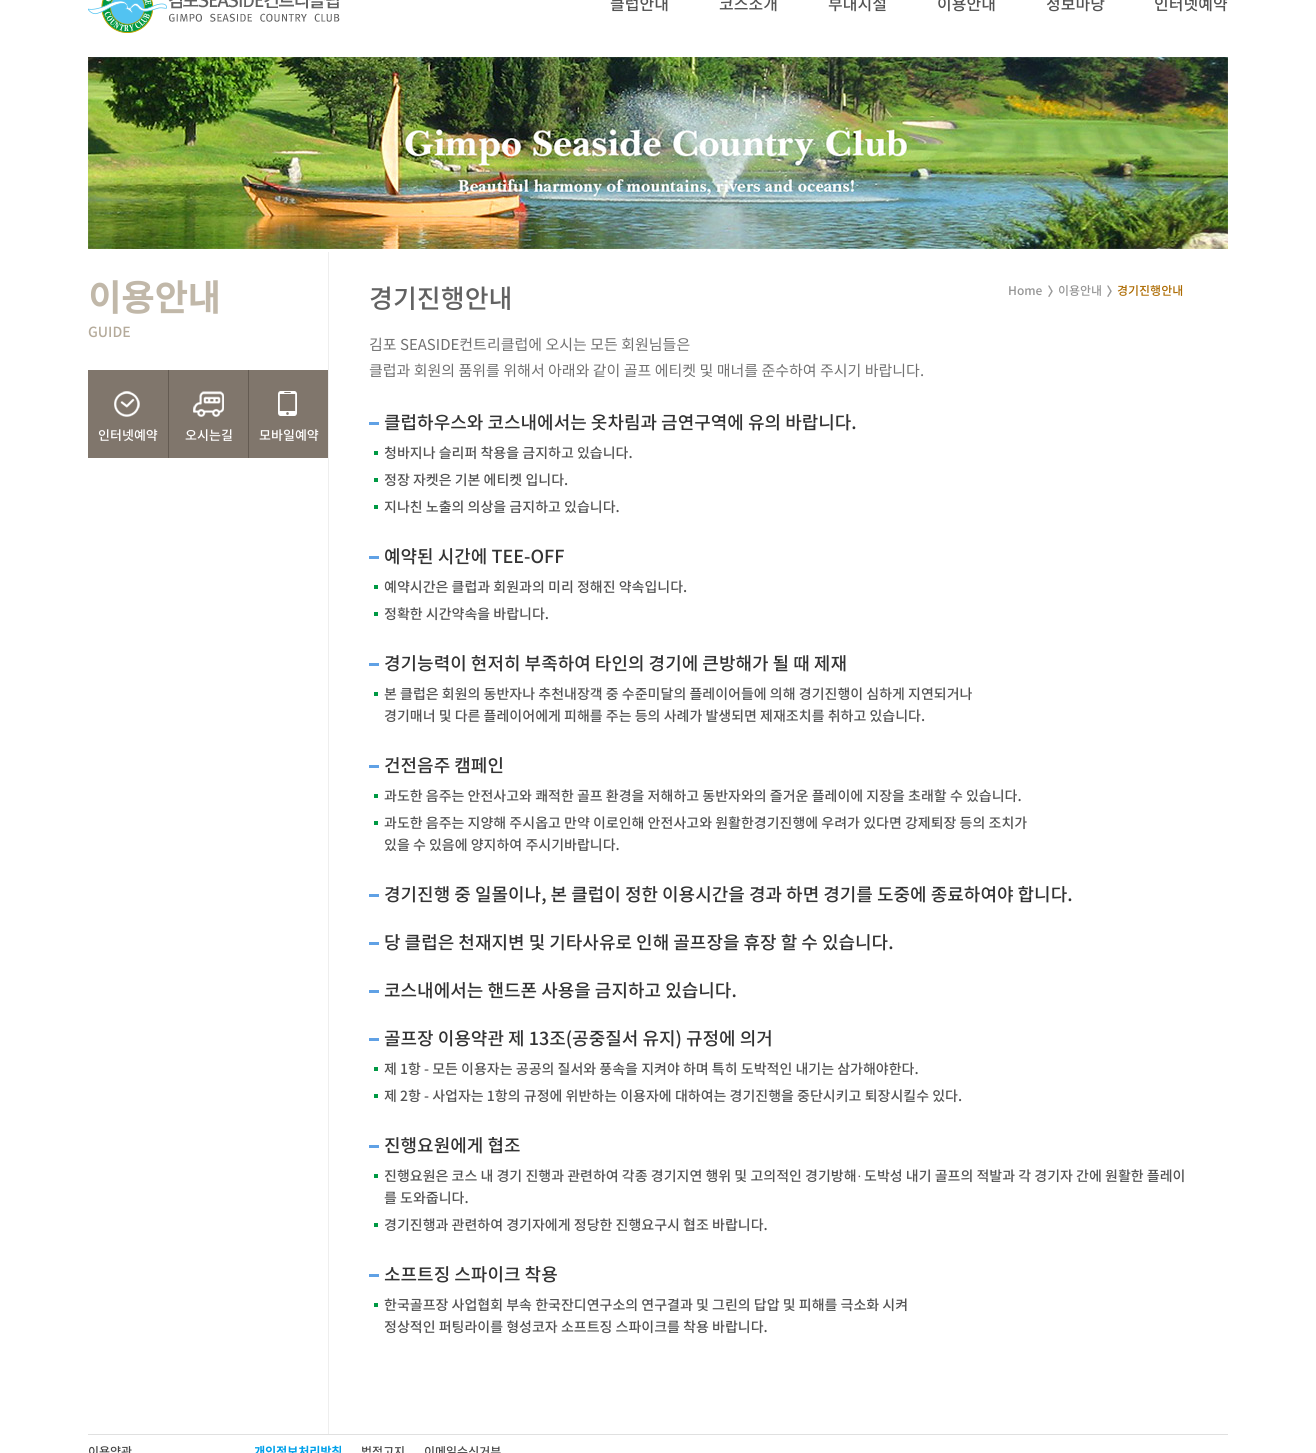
#include <cairo/cairo.h>
#include <math.h>
#include <stddef.h>

static cairo_t *cr;

static void use_color(int r, int g, int b) {
  cairo_set_source_rgb(cr, r / 255.0, g / 255.0, b / 255.0);
}

static void text(double x, double y, const char *s, const char *family, double size, int italic, int bold, int r, int g, int b) {
  cairo_select_font_face(cr, family, italic ? CAIRO_FONT_SLANT_ITALIC : CAIRO_FONT_SLANT_NORMAL,
    bold ? CAIRO_FONT_WEIGHT_BOLD : CAIRO_FONT_WEIGHT_NORMAL);
  cairo_set_font_size(cr, size);
  use_color(r, g, b);
  cairo_move_to(cr, x, y);
  cairo_show_text(cr, s);
}

static void box(double x, double y, double w, double h, int r, int g, int b) {
  use_color(r, g, b);
  cairo_rectangle(cr, x, y, w, h);
  cairo_fill(cr);
}

static void picture(const char *path, double x, double y, double w, double h) {
  cairo_surface_t *image = cairo_image_surface_create_from_png(path);
  cairo_save(cr);
  cairo_set_source_surface(cr, image, x, y);
  cairo_rectangle(cr, x, y, w, h);
  cairo_fill(cr);
  cairo_restore(cr);
  cairo_surface_destroy(image);
}

static void draw(void) {
  use_color(255, 255, 255);
  cairo_paint(cr);
  picture("img_01.png", 88, 0, 252, 33);
  picture("img_02.png", 88, 57, 1140, 192);
  box(88, 370, 240, 88, 128, 118, 108);
  picture("img_03.png", 114, 391, 26, 26);
  box(168, 370, 1, 88, 100, 91, 82);
  picture("img_04.png", 193, 391, 31, 26);
  box(248, 370, 1, 88, 100, 91, 82);
  picture("img_05.png", 278, 391, 19, 25);
  box(328, 252, 1, 1182, 238, 238, 238);
  picture("img_06.png", 1048, 285, 5, 12);
  picture("img_06.png", 1107, 285, 5, 12);
  box(369, 422, 10, 3, 96, 161, 229);
  box(374, 451, 4, 4, 0, 153, 68);
  box(374, 478, 4, 4, 0, 153, 68);
  box(374, 505, 4, 4, 0, 153, 68);
  box(369, 556, 10, 3, 96, 161, 229);
  box(374, 585, 4, 4, 0, 153, 68);
  box(374, 612, 4, 4, 0, 153, 68);
  box(369, 663, 10, 3, 96, 161, 229);
  box(374, 692, 4, 4, 0, 153, 68);
  box(369, 765, 10, 3, 96, 161, 229);
  box(374, 794, 4, 4, 0, 153, 68);
  box(374, 821, 4, 4, 0, 153, 68);
  box(369, 894, 10, 3, 96, 161, 229);
  box(369, 942, 10, 3, 96, 161, 229);
  box(369, 990, 10, 3, 96, 161, 229);
  box(369, 1038, 10, 3, 96, 161, 229);
  box(374, 1067, 4, 4, 0, 153, 68);
  box(374, 1094, 4, 4, 0, 153, 68);
  box(369, 1145, 10, 3, 96, 161, 229);
  box(374, 1174, 4, 4, 0, 153, 68);
  box(374, 1223, 4, 4, 0, 153, 68);
  box(369, 1274, 10, 3, 96, 161, 229);
  box(374, 1303, 4, 4, 0, 153, 68);
  box(88, 1434, 1140, 1, 224, 224, 224);
  text(610, 10, "클럽안내", "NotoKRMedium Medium", 16, 0, 0, 83, 83, 83);
  text(719, 10, "코스소개", "NotoKRMedium Medium", 16, 0, 0, 83, 83, 83);
  text(828, 10, "부대시설", "NotoKRMedium Medium", 16, 0, 0, 83, 83, 83);
  text(937, 10, "이용안내", "NotoKRMedium Medium", 16, 0, 0, 83, 83, 83);
  text(1046, 10, "정보마당", "NotoKRMedium Medium", 16, 0, 0, 83, 83, 83);
  text(1154, 10, "인터넷예약", "NotoKRMedium Medium", 16, 0, 0, 83, 83, 83);
  text(88, 311, "이용안내", "NotoKRMedium", 36, 0, 1, 193, 184, 169);
  text(88, 337, "GUIDE", "NotoKRMedium Medium", 14, 0, 0, 181, 171, 155);
  text(98, 440, "인터넷예약", "NotoKRMedium Medium", 13, 0, 0, 255, 255, 255);
  text(185, 440, "오시는길", "NotoKRMedium Medium", 13, 0, 0, 255, 255, 255);
  text(259, 440, "모바일예약", "NotoKRMedium Medium", 13, 0, 0, 255, 255, 255);
  text(1008, 295, "Home", "NotoKRMedium Medium", 12, 0, 0, 149, 149, 149);
  text(1058, 295, "이용안내", "NotoKRMedium Medium", 12, 0, 0, 149, 149, 149);
  text(1117, 295, "경기진행안내", "NotoKRMedium Medium", 12, 0, 0, 172, 106, 0);
  text(369, 308, "경기진행안내", "NotoKRMedium Medium", 26, 0, 0, 98, 98, 98);
  text(369, 350, "김포 SEASIDE컨트리클럽에 오시는 모든 회원님들은", "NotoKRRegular", 15, 0, 0, 112, 112, 112);
  text(369, 376, "클럽과 회원의 품위를 위해서 아래와 같이 골프 에티켓 및 매너를 준수하여 주시기 바랍니다.", "NotoKRRegular", 15, 0, 0, 112, 112, 112);
  text(384, 429, "클럽하우스와 코스내에서는 옷차림과 금연구역에 유의 바랍니다.", "NotoKRMedium Medium", 18, 0, 0, 51, 51, 51);
  text(384, 458, "청바지나 슬리퍼 착용을 금지하고 있습니다.", "NotoKRMedium Medium", 14, 0, 0, 83, 83, 83);
  text(384, 485, "정장 자켓은 기본 에티켓 입니다.", "NotoKRMedium Medium", 14, 0, 0, 83, 83, 83);
  text(384, 512, "지나친 노출의 의상을 금지하고 있습니다.", "NotoKRMedium Medium", 14, 0, 0, 83, 83, 83);
  text(384, 563, "예약된 시간에 TEE-OFF", "NotoKRMedium Medium", 18, 0, 0, 51, 51, 51);
  text(384, 592, "예약시간은 클럽과 회원과의 미리 정해진 약속입니다.", "NotoKRMedium Medium", 14, 0, 0, 83, 83, 83);
  text(384, 619, "정확한 시간약속을 바랍니다.", "NotoKRMedium Medium", 14, 0, 0, 83, 83, 83);
  text(384, 670, "경기능력이 현저히 부족하여 타인의 경기에 큰방해가 될 때 제재", "NotoKRMedium Medium", 18, 0, 0, 51, 51, 51);
  text(384, 699, "본 클럽은 회원의 동반자나 추천내장객 중 수준미달의 플레이어들에 의해 경기진행이 심하게 지연되거나", "NotoKRMedium Medium", 14, 0, 0, 83, 83, 83);
  text(384, 721, "경기매너 및 다른 플레이어에게 피해를 주는 등의 사례가 발생되면 제재조치를 취하고 있습니다.", "NotoKRMedium Medium", 14, 0, 0, 83, 83, 83);
  text(384, 772, "건전음주 캠페인", "NotoKRMedium Medium", 18, 0, 0, 51, 51, 51);
  text(384, 801, "과도한 음주는 안전사고와 쾌적한 골프 환경을 저해하고 동반자와의 즐거운 플레이에 지장을 초래할 수 있습니다.", "NotoKRMedium Medium", 14, 0, 0, 83, 83, 83);
  text(384, 828, "과도한 음주는 지양해 주시옵고 만약 이로인해 안전사고와 원활한경기진행에 우려가 있다면 강제퇴장 등의 조치가", "NotoKRMedium Medium", 14, 0, 0, 83, 83, 83);
  text(384, 850, "있을 수 있음에 양지하여 주시기바랍니다.", "NotoKRMedium Medium", 14, 0, 0, 83, 83, 83);
  text(384, 901, "경기진행 중 일몰이나, 본 클럽이 정한 이용시간을 경과 하면 경기를 도중에 종료하여야 합니다.", "NotoKRMedium Medium", 18, 0, 0, 51, 51, 51);
  text(384, 949, "당 클럽은 천재지변 및 기타사유로 인해 골프장을 휴장 할 수 있습니다.", "NotoKRMedium Medium", 18, 0, 0, 51, 51, 51);
  text(384, 997, "코스내에서는 핸드폰 사용을 금지하고 있습니다.", "NotoKRMedium Medium", 18, 0, 0, 51, 51, 51);
  text(384, 1045, "골프장 이용약관 제 13조(공중질서 유지) 규정에 의거", "NotoKRMedium Medium", 18, 0, 0, 51, 51, 51);
  text(384, 1074, "제 1항 - 모든 이용자는 공공의 질서와 풍속을 지켜야 하며 특히 도박적인 내기는 삼가해야한다.", "NotoKRMedium Medium", 14, 0, 0, 83, 83, 83);
  text(384, 1101, "제 2항 - 사업자는 1항의 규정에 위반하는 이용자에 대하여는 경기진행을 중단시키고 퇴장시킬수 있다.", "NotoKRMedium Medium", 14, 0, 0, 83, 83, 83);
  text(384, 1152, "진행요원에게 협조", "NotoKRMedium Medium", 18, 0, 0, 51, 51, 51);
  text(384, 1181, "진행요원은 코스 내 경기 진행과 관련하여 각종 경기지연 행위 및 고의적인 경기방해", "NotoKRMedium Medium", 14, 0, 0, 83, 83, 83);
  text(857, 1181, "·", "Liberation Serif", 14, 0, 0, 83, 83, 83);
  text(864, 1181, "도박성 내기 골프의 적발과 각 경기자 간에 원활한 플레이", "NotoKRMedium Medium", 14, 0, 0, 83, 83, 83);
  text(384, 1203, "를 도와줍니다.", "NotoKRMedium Medium", 14, 0, 0, 83, 83, 83);
  text(384, 1230, "경기진행과 관련하여 경기자에게 정당한 진행요구시 협조 바랍니다.", "NotoKRMedium Medium", 14, 0, 0, 83, 83, 83);
  text(384, 1281, "소프트징 스파이크 착용", "NotoKRMedium Medium", 18, 0, 0, 51, 51, 51);
  text(384, 1310, "한국골프장 사업협회 부속 한국잔디연구소의 연구결과 및 그린의 답압 및 피해를 극소화 시켜", "NotoKRMedium Medium", 14, 0, 0, 83, 83, 83);
  text(384, 1332, "정상적인 퍼팅라이를 형성코자 소프트징 스파이크를 착용 바랍니다.", "NotoKRMedium Medium", 14, 0, 0, 83, 83, 83);
  text(88, 1456, "이용약관", "NotoKRMedium Medium", 12, 0, 0, 70, 70, 70);
  text(254, 1456, "개인정보처리방침", "NotoKRMedium", 12, 0, 1, 0, 160, 233);
  text(361, 1456, "법적고지", "NotoKRMedium Medium", 12, 0, 0, 70, 70, 70);
  text(424, 1456, "이메일수신거부", "NotoKRMedium Medium", 12, 0, 0, 70, 70, 70);
}

int main(void) {
  cairo_surface_t *surface = cairo_image_surface_create(CAIRO_FORMAT_RGB24, 1316, 1453);
  cr = cairo_create(surface);
  cairo_font_options_t *options = cairo_font_options_create();
  cairo_font_options_set_hint_metrics(options, CAIRO_HINT_METRICS_OFF);
  cairo_font_options_set_hint_style(options, CAIRO_HINT_STYLE_NONE);
  cairo_set_font_options(cr, options);
  cairo_set_miter_limit(cr, 4);
  draw();
  cairo_surface_write_to_png(surface, "out.png");
  cairo_font_options_destroy(options);
  cairo_destroy(cr);
  cairo_surface_destroy(surface);
  return 0;
}
